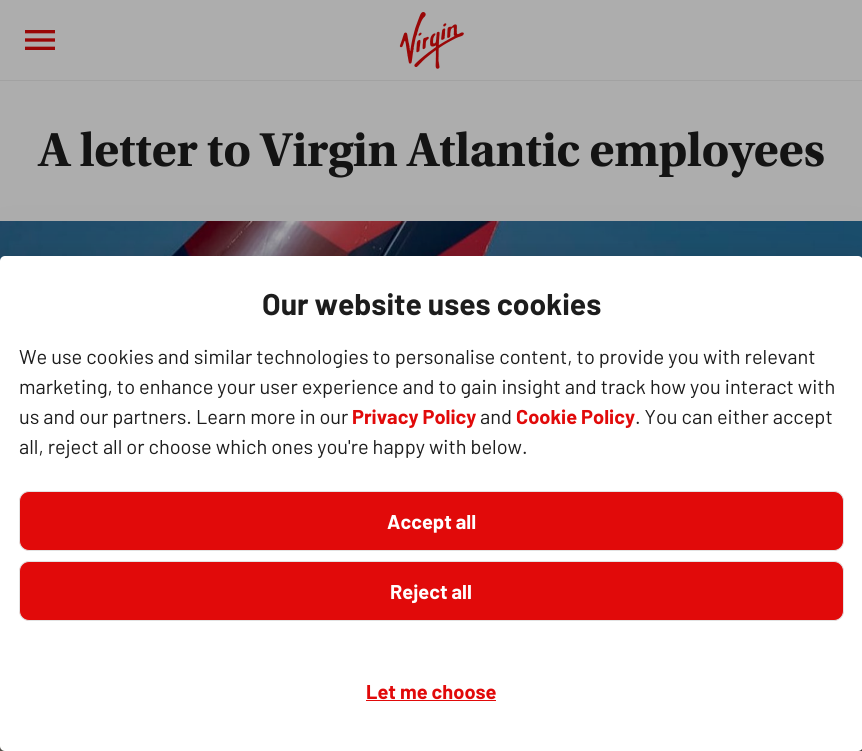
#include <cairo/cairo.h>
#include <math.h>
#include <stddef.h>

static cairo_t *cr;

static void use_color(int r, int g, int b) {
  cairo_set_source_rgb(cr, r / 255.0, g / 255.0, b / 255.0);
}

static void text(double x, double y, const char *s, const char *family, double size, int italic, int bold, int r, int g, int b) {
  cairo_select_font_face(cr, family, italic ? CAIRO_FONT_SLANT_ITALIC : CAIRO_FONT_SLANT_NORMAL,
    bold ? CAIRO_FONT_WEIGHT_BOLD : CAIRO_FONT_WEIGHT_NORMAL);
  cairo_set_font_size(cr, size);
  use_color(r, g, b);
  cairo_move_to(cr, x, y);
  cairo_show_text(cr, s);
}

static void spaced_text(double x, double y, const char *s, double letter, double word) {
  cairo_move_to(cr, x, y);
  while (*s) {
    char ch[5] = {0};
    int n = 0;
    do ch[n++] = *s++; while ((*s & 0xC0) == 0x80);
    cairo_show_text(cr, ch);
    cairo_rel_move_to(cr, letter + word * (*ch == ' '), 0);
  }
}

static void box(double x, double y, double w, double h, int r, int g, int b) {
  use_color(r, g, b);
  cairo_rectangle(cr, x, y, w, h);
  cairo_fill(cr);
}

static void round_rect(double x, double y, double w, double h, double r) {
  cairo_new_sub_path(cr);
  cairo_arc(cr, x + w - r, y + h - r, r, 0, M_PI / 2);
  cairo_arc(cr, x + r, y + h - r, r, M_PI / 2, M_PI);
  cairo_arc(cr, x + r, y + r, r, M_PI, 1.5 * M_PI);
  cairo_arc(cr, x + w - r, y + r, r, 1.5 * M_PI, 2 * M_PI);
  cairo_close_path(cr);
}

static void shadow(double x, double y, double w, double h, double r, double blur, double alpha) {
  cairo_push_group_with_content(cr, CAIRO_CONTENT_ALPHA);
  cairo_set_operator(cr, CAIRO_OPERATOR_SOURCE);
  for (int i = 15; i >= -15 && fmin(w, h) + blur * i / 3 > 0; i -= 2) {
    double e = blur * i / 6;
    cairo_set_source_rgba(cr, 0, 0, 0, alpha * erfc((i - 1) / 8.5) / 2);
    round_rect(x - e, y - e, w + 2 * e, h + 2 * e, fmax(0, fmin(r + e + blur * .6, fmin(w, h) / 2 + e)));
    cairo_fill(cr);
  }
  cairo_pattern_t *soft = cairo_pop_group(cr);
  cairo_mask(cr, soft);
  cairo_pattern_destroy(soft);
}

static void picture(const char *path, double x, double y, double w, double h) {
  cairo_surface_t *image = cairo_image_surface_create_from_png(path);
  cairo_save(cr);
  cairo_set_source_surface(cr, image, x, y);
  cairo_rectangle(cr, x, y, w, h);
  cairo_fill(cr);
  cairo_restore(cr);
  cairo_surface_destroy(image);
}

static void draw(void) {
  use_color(173, 173, 173);
  cairo_paint(cr);
  box(0, 80, 862, 1, 162, 162, 162);
  picture("img_01.png", 25, 30, 30, 20);
  picture("img_02.png", 399, 12, 65, 57);
  picture("img_03.png", 0, 221, 862, 530);
  cairo_set_source_rgba(cr, 0, 0, 0, 0.5);
  cairo_rectangle(cr, 858, 749, 4, 2);
  cairo_fill(cr);
  use_color(0, 0, 0);
  shadow(9, 279, 845, 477, 0, 9.5, 0.2);
  shadow(-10, 258, 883, 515, 15, 29, 0.12);
  shadow(-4, 283, 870, 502, 9, 24, 0.14);
  use_color(255, 255, 255);
  round_rect(0, 256, 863, 495, 5);
  cairo_fill(cr);
  use_color(225, 10, 10);
  round_rect(19.5, 491.5, 824, 59, 9.5);
  cairo_fill_preserve(cr);
  use_color(227, 227, 227);
  cairo_set_line_width(cr, 1);
  cairo_stroke(cr);
  use_color(225, 10, 10);
  round_rect(19.5, 561.5, 824, 59, 9.5);
  cairo_fill_preserve(cr);
  use_color(227, 227, 227);
  cairo_stroke(cr);
  box(366, 700, 130, 1, 225, 10, 10);
  cairo_select_font_face(cr, "Utopia", CAIRO_FONT_SLANT_NORMAL, CAIRO_FONT_WEIGHT_BOLD);
  cairo_set_font_size(cr, 50);
  use_color(20, 20, 20);
  spaced_text(38, 166, "A letter to Virgin Atlantic employees", -0.5, 0);
  text(262, 315, "Our website uses cookies", "Barlow", 30, 0, 1, 29, 29, 29);
  text(19, 364, "We use cookies and similar technologies to personalise content, to provide you with relevant", "Barlow", 20, 0, 0, 29, 29, 29);
  text(19, 394, "marketing, to enhance your user experience and to gain insight and track how you interact with", "Barlow", 20, 0, 0, 29, 29, 29);
  text(19, 424, "us and our partners. Learn more in our", "Barlow", 20, 0, 0, 29, 29, 29);
  text(352, 424, "Privacy Policy", "Barlow", 20, 0, 1, 225, 10, 10);
  text(480, 424, "and", "Barlow", 20, 0, 0, 29, 29, 29);
  text(516, 424, "Cookie Policy", "Barlow", 20, 0, 1, 225, 10, 10);
  text(635, 424, ". You can either accept", "Barlow", 20, 0, 0, 29, 29, 29);
  text(19, 454, "all, reject all or choose which ones you're happy with below.", "Barlow", 20, 0, 0, 29, 29, 29);
  text(387, 529, "Accept all", "Barlow", 20, 0, 1, 255, 255, 255);
  text(390, 599, "Reject all", "Barlow", 20, 0, 1, 255, 255, 255);
  text(366, 699, "Let me choose", "Barlow", 20, 0, 1, 225, 10, 10);
}

int main(void) {
  cairo_surface_t *surface = cairo_image_surface_create(CAIRO_FORMAT_RGB24, 862, 751);
  cr = cairo_create(surface);
  cairo_font_options_t *options = cairo_font_options_create();
  cairo_font_options_set_hint_metrics(options, CAIRO_HINT_METRICS_OFF);
  cairo_font_options_set_hint_style(options, CAIRO_HINT_STYLE_NONE);
  cairo_set_font_options(cr, options);
  cairo_set_miter_limit(cr, 4);
  draw();
  cairo_surface_write_to_png(surface, "out.png");
  cairo_font_options_destroy(options);
  cairo_destroy(cr);
  cairo_surface_destroy(surface);
  return 0;
}
